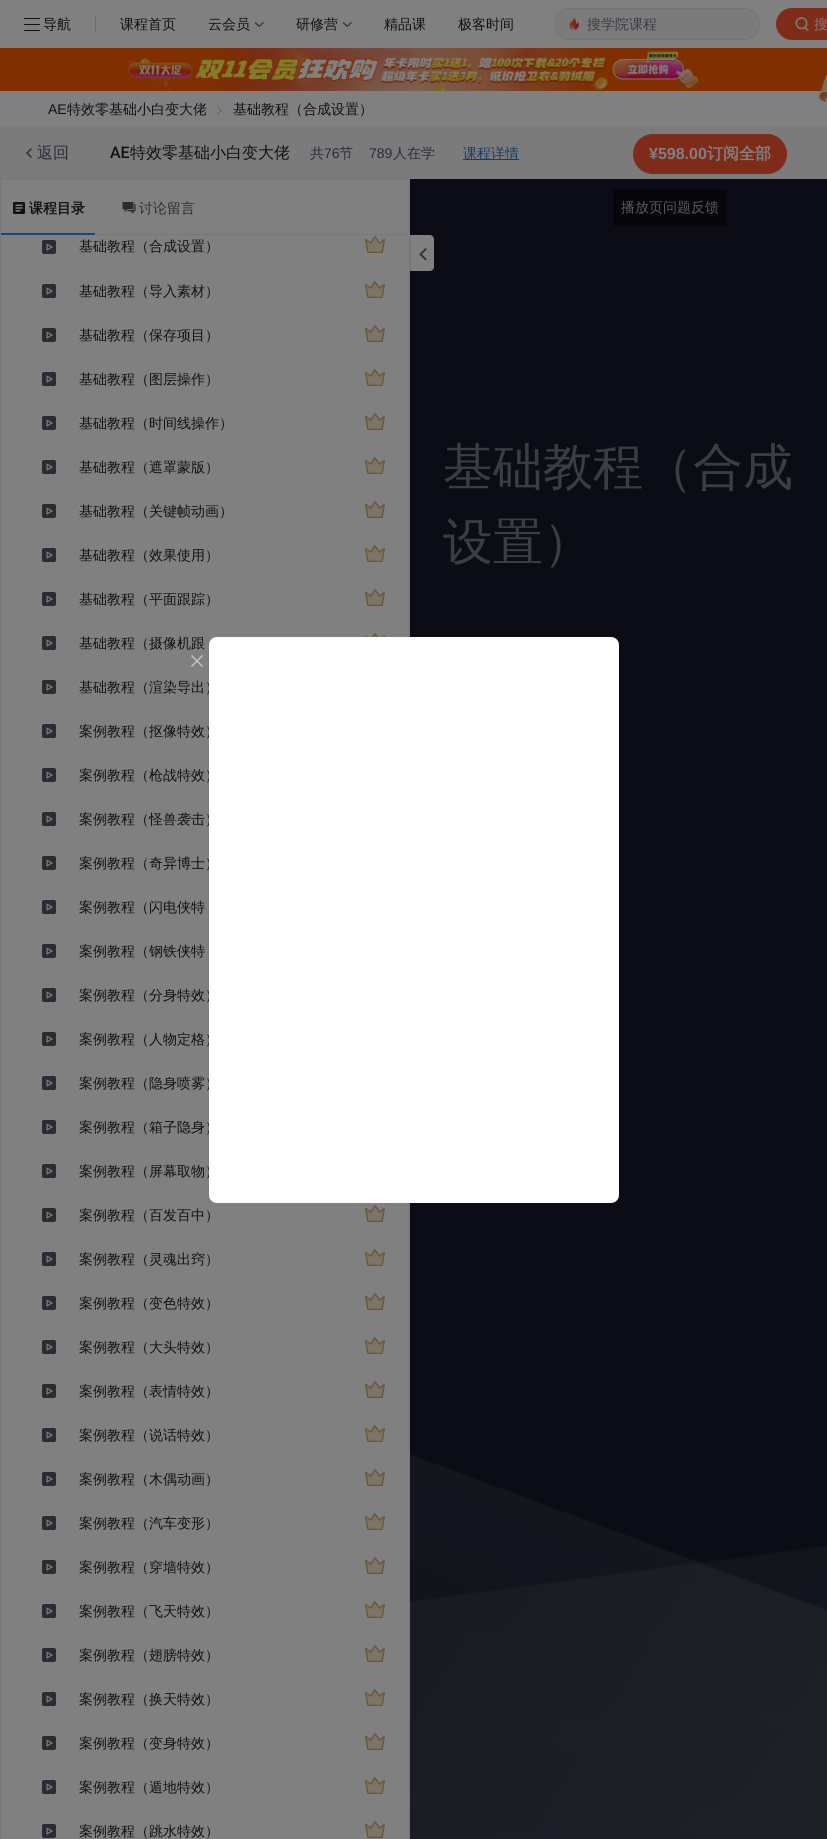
#include <cairo/cairo.h>
#include <math.h>
#include <stddef.h>

static cairo_t *cr;

static void use_color(int r, int g, int b) {
  cairo_set_source_rgb(cr, r / 255.0, g / 255.0, b / 255.0);
}

static void text(double x, double y, const char *s, const char *family, double size, int italic, int bold, int r, int g, int b) {
  cairo_select_font_face(cr, family, italic ? CAIRO_FONT_SLANT_ITALIC : CAIRO_FONT_SLANT_NORMAL,
    bold ? CAIRO_FONT_WEIGHT_BOLD : CAIRO_FONT_WEIGHT_NORMAL);
  cairo_set_font_size(cr, size);
  use_color(r, g, b);
  cairo_move_to(cr, x, y);
  cairo_show_text(cr, s);
}

static void box(double x, double y, double w, double h, int r, int g, int b) {
  use_color(r, g, b);
  cairo_rectangle(cr, x, y, w, h);
  cairo_fill(cr);
}

static void round_rect(double x, double y, double w, double h, double r) {
  cairo_new_sub_path(cr);
  cairo_arc(cr, x + w - r, y + h - r, r, 0, M_PI / 2);
  cairo_arc(cr, x + r, y + h - r, r, M_PI / 2, M_PI);
  cairo_arc(cr, x + r, y + r, r, M_PI, 1.5 * M_PI);
  cairo_arc(cr, x + w - r, y + r, r, 1.5 * M_PI, 2 * M_PI);
  cairo_close_path(cr);
}

static void picture(const char *path, double x, double y, double w, double h) {
  cairo_surface_t *image = cairo_image_surface_create_from_png(path);
  cairo_save(cr);
  cairo_set_source_surface(cr, image, x, y);
  cairo_rectangle(cr, x, y, w, h);
  cairo_fill(cr);
  cairo_restore(cr);
  cairo_surface_destroy(image);
}

static void draw(void) {
  use_color(128, 128, 128);
  cairo_paint(cr);
  picture("img_01.png", 24, 18, 16, 13);
  use_color(108, 108, 108);
  round_rect(95, 16, 1, 16, 0.5);
  cairo_fill(cr);
  picture("img_02.png", 254, 22, 10, 5);
  picture("img_03.png", 342, 22, 10, 5);
  use_color(123, 123, 124);
  round_rect(554.5, 8.5, 205, 31, 15.5);
  cairo_fill_preserve(cr);
  use_color(116, 116, 119);
  cairo_set_line_width(cr, 1);
  cairo_stroke(cr);
  picture("img_04.png", 569, 18, 10, 12);
  use_color(126, 43, 25);
  round_rect(776, 8, 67, 32, 16);
  cairo_fill(cr);
  picture("img_05.png", 795, 17, 14, 15);
  picture("img_07.png", 0, 48, 827, 43);
  picture("img_06.png", 818, 74, 9, 33);
  use_color(102, 102, 108);
  cairo_new_path(cr);
  cairo_move_to(cr, 217.5, 106);
  cairo_line_to(cr, 222, 110.5);
  cairo_line_to(cr, 221, 111);
  cairo_line_to(cr, 217, 107);
  cairo_close_path(cr);
  cairo_fill(cr);
  cairo_new_path(cr);
  cairo_move_to(cr, 221, 109.5);
  cairo_line_to(cr, 222, 110.5);
  cairo_line_to(cr, 217.5, 114.5);
  cairo_line_to(cr, 217, 114);
  cairo_close_path(cr);
  cairo_fill(cr);
  box(0, 127, 827, 52, 123, 123, 124);
  picture("img_08.png", 26, 148, 6, 10);
  box(463, 159, 56, 1, 20, 62, 102);
  use_color(126, 43, 25);
  round_rect(633.5, 134.5, 153, 39, 19.5);
  cairo_fill_preserve(cr);
  cairo_stroke(cr);
  cairo_rectangle(cr, 0.5, 179.5, 409, 55);
  use_color(120, 120, 123);
  cairo_stroke(cr);
  picture("img_09.png", 13, 202, 12, 12);
  picture("img_10.png", 122, 202, 14, 12);
  box(1, 233, 94, 2, 23, 70, 120);
  box(409, 236, 1, 1603, 120, 120, 123);
  box(0, 236, 1, 1603, 120, 120, 123);
  picture("img_11.png", 42, 240, 14, 14);
  picture("img_12.png", 365, 236, 20, 17);
  picture("img_11.png", 42, 284, 14, 14);
  picture("img_12.png", 365, 281, 20, 17);
  picture("img_11.png", 42, 328, 14, 14);
  picture("img_12.png", 365, 325, 20, 17);
  picture("img_11.png", 42, 372, 14, 14);
  picture("img_12.png", 365, 369, 20, 17);
  picture("img_11.png", 42, 416, 14, 14);
  picture("img_12.png", 365, 413, 20, 17);
  picture("img_11.png", 42, 460, 14, 14);
  picture("img_12.png", 365, 457, 20, 17);
  picture("img_11.png", 42, 504, 14, 14);
  picture("img_12.png", 365, 501, 20, 17);
  picture("img_11.png", 42, 548, 14, 14);
  picture("img_12.png", 365, 545, 20, 17);
  picture("img_11.png", 42, 592, 14, 14);
  picture("img_12.png", 365, 589, 20, 17);
  picture("img_11.png", 42, 636, 14, 14);
  picture("img_13.png", 365, 633, 20, 4);
  picture("img_11.png", 42, 680, 14, 14);
  picture("img_11.png", 42, 724, 14, 14);
  picture("img_11.png", 42, 768, 14, 14);
  picture("img_11.png", 42, 812, 14, 14);
  picture("img_11.png", 42, 856, 14, 14);
  picture("img_11.png", 42, 900, 14, 14);
  picture("img_11.png", 42, 944, 14, 14);
  picture("img_11.png", 42, 988, 14, 14);
  picture("img_11.png", 42, 1032, 14, 14);
  picture("img_11.png", 42, 1076, 14, 14);
  picture("img_11.png", 42, 1120, 14, 14);
  picture("img_11.png", 42, 1164, 14, 14);
  picture("img_11.png", 42, 1208, 14, 14);
  picture("img_12.png", 365, 1205, 20, 17);
  picture("img_11.png", 42, 1252, 14, 14);
  picture("img_12.png", 365, 1249, 20, 17);
  picture("img_11.png", 42, 1296, 14, 14);
  picture("img_12.png", 365, 1293, 20, 17);
  picture("img_11.png", 42, 1340, 14, 14);
  picture("img_12.png", 365, 1337, 20, 17);
  picture("img_11.png", 42, 1384, 14, 14);
  picture("img_12.png", 365, 1381, 20, 17);
  picture("img_11.png", 42, 1428, 14, 14);
  picture("img_12.png", 365, 1425, 20, 17);
  picture("img_11.png", 42, 1472, 14, 14);
  picture("img_12.png", 365, 1469, 20, 17);
  picture("img_11.png", 42, 1516, 14, 14);
  picture("img_12.png", 365, 1513, 20, 17);
  picture("img_11.png", 42, 1560, 14, 14);
  picture("img_12.png", 365, 1557, 20, 17);
  picture("img_11.png", 42, 1604, 14, 14);
  picture("img_12.png", 365, 1601, 20, 17);
  picture("img_11.png", 42, 1648, 14, 14);
  picture("img_12.png", 365, 1645, 20, 17);
  picture("img_11.png", 42, 1692, 14, 14);
  picture("img_12.png", 365, 1689, 20, 17);
  picture("img_11.png", 42, 1736, 14, 14);
  picture("img_12.png", 365, 1733, 20, 17);
  picture("img_11.png", 42, 1780, 14, 14);
  picture("img_12.png", 365, 1777, 20, 17);
  picture("img_11.png", 42, 1824, 14, 14);
  picture("img_12.png", 365, 1821, 20, 17);
  picture("img_15.png", 410, 179, 417, 1660);
  use_color(128, 128, 128);
  cairo_new_path(cr);
  cairo_move_to(cr, 410, 235);
  cairo_line_to(cr, 430, 235);
  cairo_curve_to(cr, 432, 235, 434, 237, 434, 239);
  cairo_line_to(cr, 434, 267);
  cairo_curve_to(cr, 434, 269, 432, 271, 430, 271);
  cairo_line_to(cr, 410, 271);
  cairo_close_path(cr);
  cairo_fill(cr);
  box(410, 235, 1, 36, 116, 116, 119);
  picture("img_14.png", 419, 248, 8, 13);
  box(613, 189, 114, 37, 6, 6, 11);
  picture("img_16.png", 191, 655, 12, 12);
  text(43, 29, "导航", "WenQuanYi Zen Hei Medium", 14, 0, 0, 13, 13, 13);
  text(120, 29, "课程首页", "WenQuanYi Zen Hei Medium", 14, 0, 0, 17, 17, 19);
  text(208, 29, "云会员", "WenQuanYi Zen Hei Medium", 14, 0, 0, 17, 17, 19);
  text(296, 29, "研修营", "WenQuanYi Zen Hei Medium", 14, 0, 0, 17, 17, 19);
  text(384, 29, "精品课", "WenQuanYi Zen Hei Medium", 14, 0, 0, 17, 17, 19);
  text(458, 29, "极客时间", "WenQuanYi Zen Hei Medium", 14, 0, 0, 17, 17, 19);
  text(587, 29, "搜学院课程", "WenQuanYi Zen Hei Medium", 14, 0, 0, 60, 60, 68);
  text(814, 29, "搜", "WenQuanYi Zen Hei Medium", 14, 0, 0, 128, 128, 128);
  text(48, 114, "AE", "Liberation Sans", 14, 0, 0, 17, 17, 19);
  text(67, 114, "特效零基础小白变大佬", "WenQuanYi Zen Hei Medium", 14, 0, 0, 17, 17, 19);
  text(233, 114, "基础教程（合成设置）", "WenQuanYi Zen Hei Medium", 14, 0, 0, 17, 17, 19);
  text(37, 158, "返回", "WenQuanYi Zen Hei Medium", 16, 0, 0, 41, 45, 55);
  text(110, 158, "AE", "Roboto Medium", 16, 0, 0, 17, 17, 19);
  text(130, 158, "特效零基础小白变大佬", "WenQuanYi Zen Hei Medium", 16, 0, 0, 17, 17, 19);
  text(310, 158, "共", "WenQuanYi Zen Hei Medium", 14, 0, 0, 41, 45, 55);
  text(324, 158, "76", "Liberation Sans", 14, 0, 0, 41, 45, 55);
  text(339, 158, "节", "WenQuanYi Zen Hei Medium", 14, 0, 0, 41, 45, 55);
  text(369, 158, "789", "Liberation Sans", 14, 0, 0, 41, 45, 55);
  text(393, 158, "人在学", "WenQuanYi Zen Hei Medium", 14, 0, 0, 41, 45, 55);
  text(463, 158, "课程详情", "WenQuanYi Zen Hei Medium", 14, 0, 0, 20, 62, 102);
  text(649, 159, "¥598.00", "Liberation Sans", 16, 0, 1, 128, 128, 128);
  text(707, 159, "订阅全部", "WenQuanYi Zen Hei", 16, 0, 1, 128, 128, 128);
  text(29, 213, "课程目录", "WenQuanYi Zen Hei", 14, 0, 1, 17, 17, 19);
  text(139, 213, "讨论留言", "WenQuanYi Zen Hei Medium", 14, 0, 0, 41, 45, 55);
  text(79, 251, "基础教程（合成设置）", "WenQuanYi Zen Hei Medium", 14, 0, 0, 17, 17, 19);
  text(79, 296, "基础教程（导入素材）", "WenQuanYi Zen Hei Medium", 14, 0, 0, 17, 17, 19);
  text(79, 340, "基础教程（保存项目）", "WenQuanYi Zen Hei Medium", 14, 0, 0, 17, 17, 19);
  text(79, 384, "基础教程（图层操作）", "WenQuanYi Zen Hei Medium", 14, 0, 0, 17, 17, 19);
  text(79, 428, "基础教程（时间线操作）", "WenQuanYi Zen Hei Medium", 14, 0, 0, 17, 17, 19);
  text(79, 472, "基础教程（遮罩蒙版）", "WenQuanYi Zen Hei Medium", 14, 0, 0, 17, 17, 19);
  text(79, 516, "基础教程（关键帧动画）", "WenQuanYi Zen Hei Medium", 14, 0, 0, 17, 17, 19);
  text(79, 560, "基础教程（效果使用）", "WenQuanYi Zen Hei Medium", 14, 0, 0, 17, 17, 19);
  text(79, 604, "基础教程（平面跟踪）", "WenQuanYi Zen Hei Medium", 14, 0, 0, 17, 17, 19);
  text(79, 648, "基础教程（摄像机跟", "WenQuanYi Zen Hei Medium", 14, 0, 0, 17, 17, 19);
  text(79, 692, "基础教程（渲染导出）", "WenQuanYi Zen Hei Medium", 14, 0, 0, 17, 17, 19);
  text(79, 736, "案例教程（抠像特效）", "WenQuanYi Zen Hei Medium", 14, 0, 0, 17, 17, 19);
  text(79, 780, "案例教程（枪战特效）", "WenQuanYi Zen Hei Medium", 14, 0, 0, 17, 17, 19);
  text(79, 824, "案例教程（怪兽袭击）", "WenQuanYi Zen Hei Medium", 14, 0, 0, 17, 17, 19);
  text(79, 868, "案例教程（奇异博士）", "WenQuanYi Zen Hei Medium", 14, 0, 0, 17, 17, 19);
  text(79, 912, "案例教程（闪电侠特", "WenQuanYi Zen Hei Medium", 14, 0, 0, 17, 17, 19);
  text(79, 956, "案例教程（钢铁侠特", "WenQuanYi Zen Hei Medium", 14, 0, 0, 17, 17, 19);
  text(79, 1000, "案例教程（分身特效）", "WenQuanYi Zen Hei Medium", 14, 0, 0, 17, 17, 19);
  text(79, 1044, "案例教程（人物定格）", "WenQuanYi Zen Hei Medium", 14, 0, 0, 17, 17, 19);
  text(79, 1088, "案例教程（隐身喷雾）", "WenQuanYi Zen Hei Medium", 14, 0, 0, 17, 17, 19);
  text(79, 1132, "案例教程（箱子隐身）", "WenQuanYi Zen Hei Medium", 14, 0, 0, 17, 17, 19);
  text(79, 1176, "案例教程（屏幕取物）", "WenQuanYi Zen Hei Medium", 14, 0, 0, 17, 17, 19);
  text(79, 1220, "案例教程（百发百中）", "WenQuanYi Zen Hei Medium", 14, 0, 0, 17, 17, 19);
  text(79, 1264, "案例教程（灵魂出窍）", "WenQuanYi Zen Hei Medium", 14, 0, 0, 17, 17, 19);
  text(79, 1308, "案例教程（变色特效）", "WenQuanYi Zen Hei Medium", 14, 0, 0, 17, 17, 19);
  text(79, 1352, "案例教程（大头特效）", "WenQuanYi Zen Hei Medium", 14, 0, 0, 17, 17, 19);
  text(79, 1396, "案例教程（表情特效）", "WenQuanYi Zen Hei Medium", 14, 0, 0, 17, 17, 19);
  text(79, 1440, "案例教程（说话特效）", "WenQuanYi Zen Hei Medium", 14, 0, 0, 17, 17, 19);
  text(79, 1484, "案例教程（木偶动画）", "WenQuanYi Zen Hei Medium", 14, 0, 0, 17, 17, 19);
  text(79, 1528, "案例教程（汽车变形）", "WenQuanYi Zen Hei Medium", 14, 0, 0, 17, 17, 19);
  text(79, 1572, "案例教程（穿墙特效）", "WenQuanYi Zen Hei Medium", 14, 0, 0, 17, 17, 19);
  text(79, 1616, "案例教程（飞天特效）", "WenQuanYi Zen Hei Medium", 14, 0, 0, 17, 17, 19);
  text(79, 1660, "案例教程（翅膀特效）", "WenQuanYi Zen Hei Medium", 14, 0, 0, 17, 17, 19);
  text(79, 1704, "案例教程（换天特效）", "WenQuanYi Zen Hei Medium", 14, 0, 0, 17, 17, 19);
  text(79, 1748, "案例教程（变身特效）", "WenQuanYi Zen Hei Medium", 14, 0, 0, 17, 17, 19);
  text(79, 1792, "案例教程（遁地特效）", "WenQuanYi Zen Hei Medium", 14, 0, 0, 17, 17, 19);
  text(79, 1836, "案例教程（跳水特效）", "WenQuanYi Zen Hei Medium", 14, 0, 0, 17, 17, 19);
  text(621, 212, "播放页问题反馈", "WenQuanYi Zen Hei Medium", 14, 0, 0, 91, 91, 93);
  text(443, 484, "基础教程（合成", "WenQuanYi Zen Hei Medium", 50, 0, 0, 60, 60, 68);
  text(443, 559, "设置）", "WenQuanYi Zen Hei Medium", 50, 0, 0, 60, 60, 68);
  use_color(255, 255, 255);
  round_rect(209, 637, 410, 566, 8);
  cairo_fill(cr);
}

int main(void) {
  cairo_surface_t *surface = cairo_image_surface_create(CAIRO_FORMAT_RGB24, 827, 1839);
  cr = cairo_create(surface);
  cairo_font_options_t *options = cairo_font_options_create();
  cairo_font_options_set_hint_metrics(options, CAIRO_HINT_METRICS_OFF);
  cairo_font_options_set_hint_style(options, CAIRO_HINT_STYLE_NONE);
  cairo_set_font_options(cr, options);
  cairo_set_miter_limit(cr, 4);
  draw();
  cairo_surface_write_to_png(surface, "out.png");
  cairo_font_options_destroy(options);
  cairo_destroy(cr);
  cairo_surface_destroy(surface);
  return 0;
}
